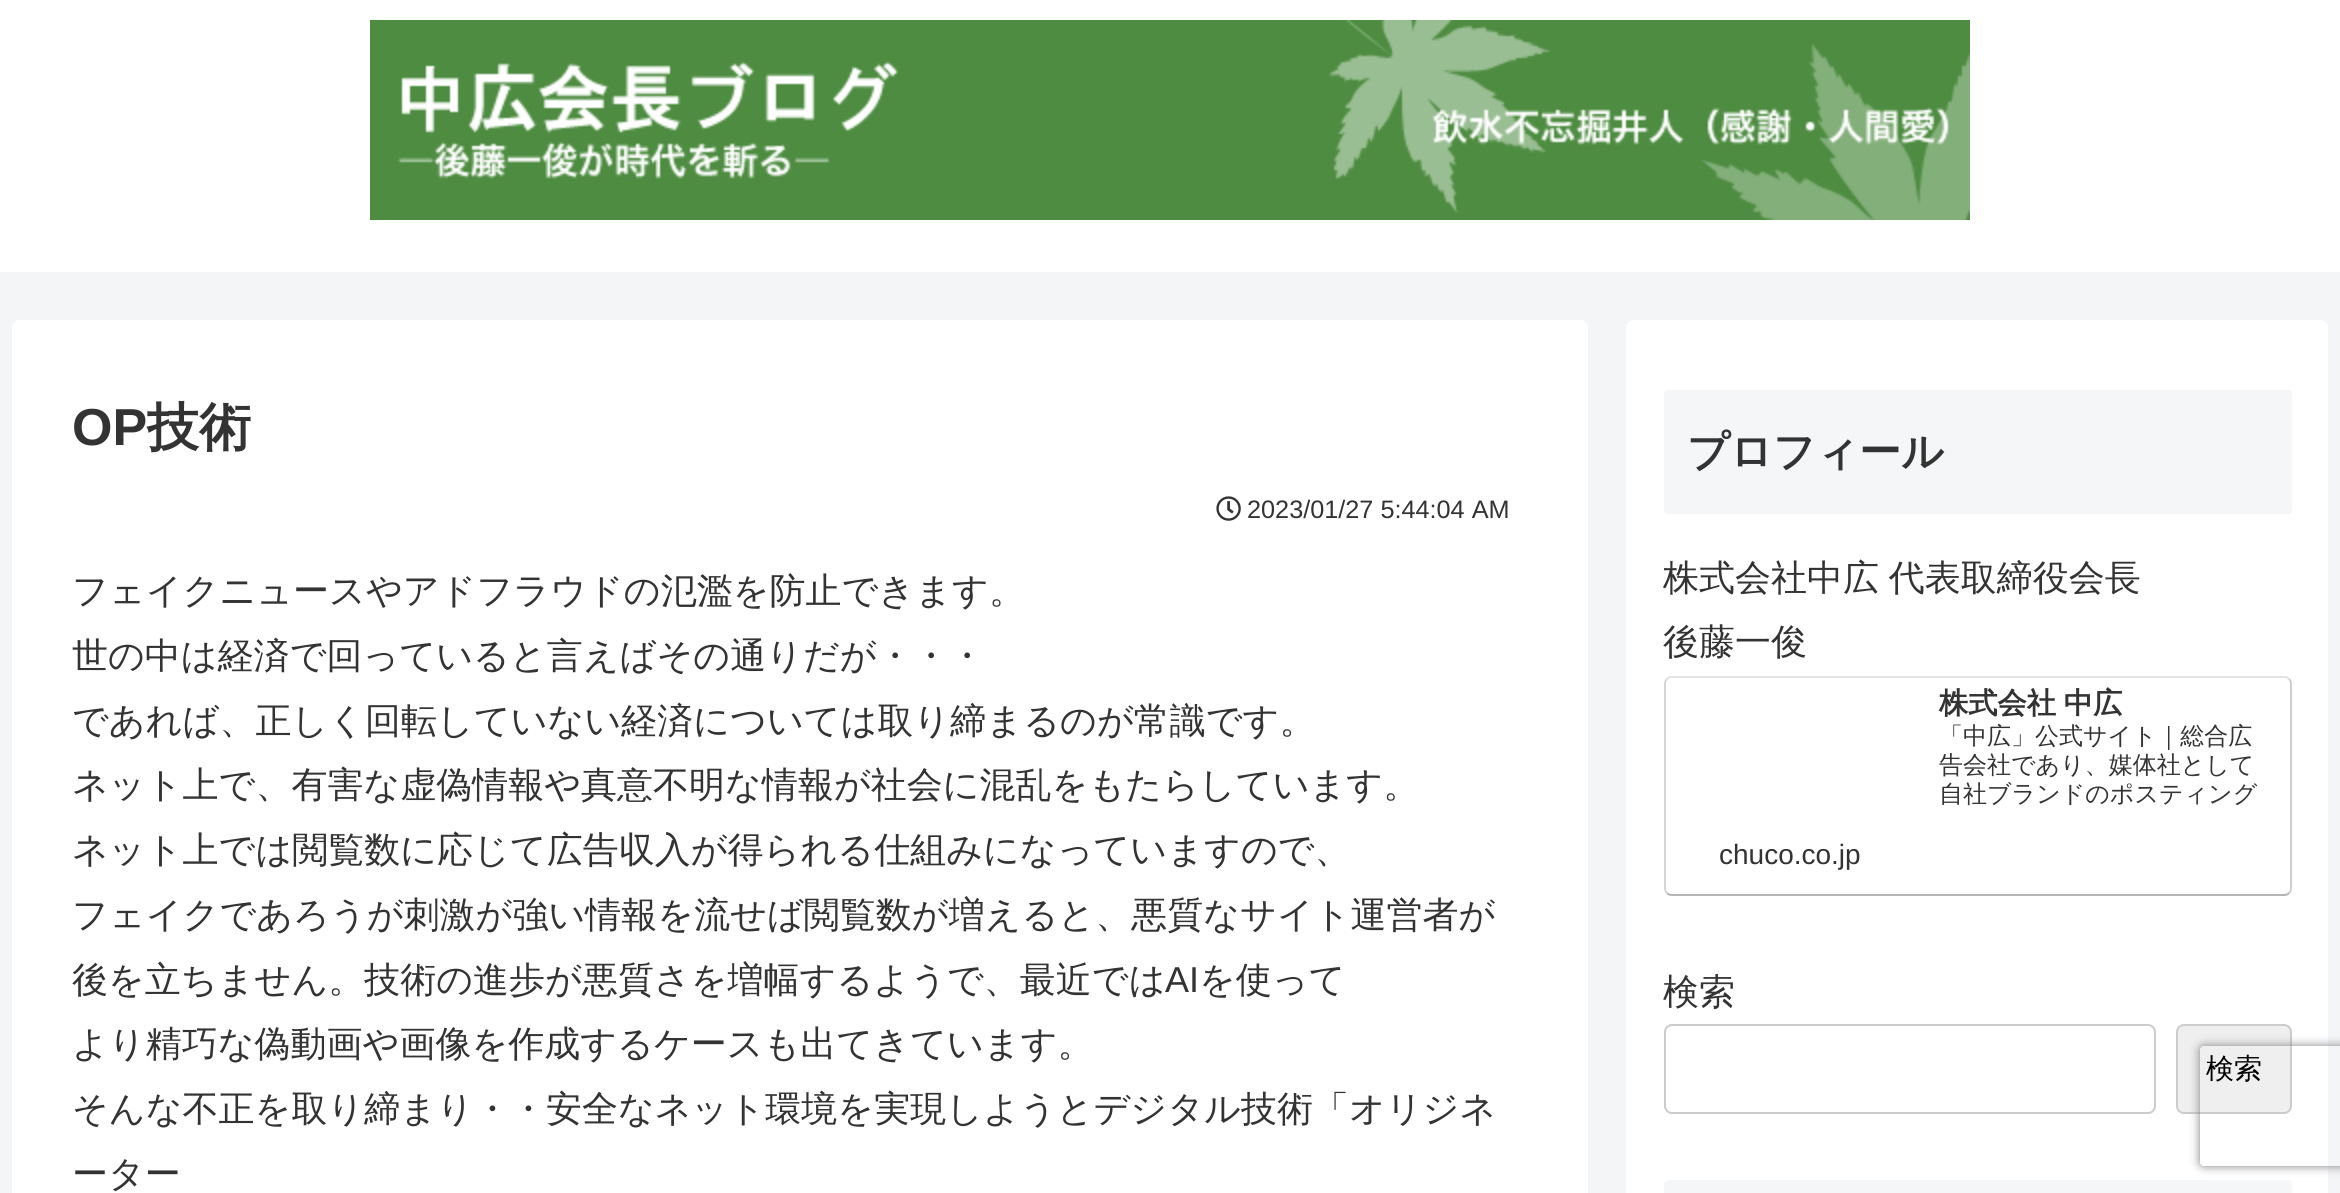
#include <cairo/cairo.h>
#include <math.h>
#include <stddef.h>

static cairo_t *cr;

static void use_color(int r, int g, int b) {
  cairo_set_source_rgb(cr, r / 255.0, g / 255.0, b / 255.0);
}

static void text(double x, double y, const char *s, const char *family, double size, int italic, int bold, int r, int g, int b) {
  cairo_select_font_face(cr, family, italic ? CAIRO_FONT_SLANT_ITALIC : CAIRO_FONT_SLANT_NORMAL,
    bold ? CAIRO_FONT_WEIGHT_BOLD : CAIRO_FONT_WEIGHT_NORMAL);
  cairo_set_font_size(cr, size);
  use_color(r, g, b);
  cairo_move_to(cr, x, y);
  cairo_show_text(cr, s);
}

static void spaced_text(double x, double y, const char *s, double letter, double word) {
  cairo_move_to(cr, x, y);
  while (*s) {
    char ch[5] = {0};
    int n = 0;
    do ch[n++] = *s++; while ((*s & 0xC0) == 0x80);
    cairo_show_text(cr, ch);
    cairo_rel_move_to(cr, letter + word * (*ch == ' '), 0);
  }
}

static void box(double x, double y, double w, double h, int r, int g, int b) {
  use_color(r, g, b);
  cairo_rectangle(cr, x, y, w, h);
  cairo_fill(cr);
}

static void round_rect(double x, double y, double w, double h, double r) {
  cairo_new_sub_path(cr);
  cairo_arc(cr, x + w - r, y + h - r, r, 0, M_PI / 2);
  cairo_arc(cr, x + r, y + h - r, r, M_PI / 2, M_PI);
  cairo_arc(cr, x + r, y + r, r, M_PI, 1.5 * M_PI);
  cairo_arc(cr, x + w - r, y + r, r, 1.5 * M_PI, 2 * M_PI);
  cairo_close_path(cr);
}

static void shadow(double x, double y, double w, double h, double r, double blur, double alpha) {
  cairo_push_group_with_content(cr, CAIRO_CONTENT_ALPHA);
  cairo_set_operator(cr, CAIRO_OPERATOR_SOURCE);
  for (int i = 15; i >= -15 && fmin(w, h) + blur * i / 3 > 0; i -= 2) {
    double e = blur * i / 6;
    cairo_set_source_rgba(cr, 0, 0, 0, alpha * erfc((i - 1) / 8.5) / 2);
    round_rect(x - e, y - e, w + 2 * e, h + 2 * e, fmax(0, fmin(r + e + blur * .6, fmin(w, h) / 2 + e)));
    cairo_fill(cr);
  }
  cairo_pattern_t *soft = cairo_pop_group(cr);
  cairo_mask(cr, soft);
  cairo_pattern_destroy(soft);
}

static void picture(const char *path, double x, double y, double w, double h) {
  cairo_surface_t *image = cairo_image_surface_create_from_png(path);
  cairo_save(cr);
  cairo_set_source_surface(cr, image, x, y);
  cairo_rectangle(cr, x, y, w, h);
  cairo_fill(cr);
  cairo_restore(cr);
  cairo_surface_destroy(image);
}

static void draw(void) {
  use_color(244, 245, 247);
  cairo_paint(cr);
  box(0, 0, 2340, 272, 255, 255, 255);
  picture("img_01.png", 370, 20, 1600, 200);
  round_rect(12, 320, 1576, 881, 8);
  cairo_fill(cr);
  picture("img_02.png", 1216, 496, 25, 25);
  round_rect(1626, 320, 702, 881, 8);
  cairo_fill(cr);
  use_color(245, 246, 247);
  round_rect(1664, 390, 628, 124, 4);
  cairo_fill(cr);
  cairo_new_path(cr);
  cairo_move_to(cr, 1667, 679);
  cairo_curve_to(cr, 1668.5, 677.5, 1670, 677, 1672, 677);
  cairo_line_to(cr, 2284, 677);
  cairo_curve_to(cr, 2286, 677, 2287.5, 677.5, 2289, 679);
  use_color(227, 227, 227);
  cairo_stroke(cr);
  cairo_new_path(cr);
  cairo_move_to(cr, 2289, 679);
  cairo_curve_to(cr, 2290.5, 680.5, 2291, 682, 2291, 684);
  cairo_line_to(cr, 2291, 888);
  cairo_curve_to(cr, 2291, 890, 2290.5, 891.5, 2289, 893);
  use_color(206, 206, 206);
  cairo_stroke(cr);
  cairo_new_path(cr);
  cairo_move_to(cr, 2289, 893);
  cairo_curve_to(cr, 2287.5, 894.5, 2286, 895, 2284, 895);
  cairo_line_to(cr, 1672, 895);
  cairo_curve_to(cr, 1670, 895, 1668.5, 894.5, 1667, 893);
  use_color(180, 180, 180);
  cairo_stroke(cr);
  cairo_new_path(cr);
  cairo_move_to(cr, 1667, 893);
  cairo_curve_to(cr, 1665.5, 891.5, 1665, 890, 1665, 888);
  cairo_line_to(cr, 1665, 684);
  cairo_curve_to(cr, 1665, 682, 1665.5, 680.5, 1667, 679);
  use_color(214, 214, 214);
  cairo_stroke(cr);
  round_rect(1665, 1025, 490, 88, 7);
  use_color(204, 204, 204);
  cairo_stroke(cr);
  use_color(239, 239, 239);
  round_rect(2177, 1025, 114, 88, 7);
  cairo_fill_preserve(cr);
  use_color(204, 204, 204);
  cairo_stroke(cr);
  use_color(245, 246, 247);
  round_rect(1664, 1180, 628, 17, 4);
  cairo_fill(cr);
  cairo_save(cr);
  cairo_set_fill_rule(cr, CAIRO_FILL_RULE_EVEN_ODD);
  cairo_new_path(cr);
  cairo_move_to(cr, 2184, 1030);
  cairo_line_to(cr, 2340, 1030);
  cairo_line_to(cr, 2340, 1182);
  cairo_line_to(cr, 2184, 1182);
  cairo_close_path(cr);
  cairo_move_to(cr, 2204, 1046);
  cairo_line_to(cr, 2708, 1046);
  cairo_curve_to(cr, 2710, 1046, 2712, 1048, 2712, 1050);
  cairo_line_to(cr, 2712, 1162);
  cairo_curve_to(cr, 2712, 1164, 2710, 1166, 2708, 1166);
  cairo_line_to(cr, 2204, 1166);
  cairo_curve_to(cr, 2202, 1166, 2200, 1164, 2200, 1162);
  cairo_line_to(cr, 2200, 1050);
  cairo_curve_to(cr, 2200, 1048, 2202, 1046, 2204, 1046);
  cairo_close_path(cr);
  cairo_clip(cr);
  use_color(128, 128, 128);
  shadow(2200, 1046, 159, 120, 4, 5, 1);
  cairo_restore(cr);
  text(72, 445, "OP", "Liberation Sans", 52, 0, 1, 51, 51, 51);
  text(147, 445, "技術", "WenQuanYi Zen Hei", 52, 0, 1, 51, 51, 51);
  text(1247, 518, "2023/01/27 5:44:04 AM", "Liberation Sans", 25.25, 0, 0, 51, 51, 51);
  text(72, 603, "フェイクニュースやアドフラウドの氾濫を防止できます。", "WenQuanYi Zen Hei Medium", 36, 0, 0, 51, 51, 51);
  text(72, 668, "世の中は経済で回っていると言えばその通りだが・・・", "WenQuanYi Zen Hei Medium", 36, 0, 0, 51, 51, 51);
  text(72, 733, "であれば、正しく回転していない経済については取り締まるのが常識です。", "WenQuanYi Zen Hei Medium", 36, 0, 0, 51, 51, 51);
  text(72, 797, "ネット上で、有害な虚偽情報や真意不明な情報が社会に混乱をもたらしています。", "WenQuanYi Zen Hei Medium", 36, 0, 0, 51, 51, 51);
  text(72, 862, "ネット上では閲覧数に応じて広告収入が得られる仕組みになっていますので、", "WenQuanYi Zen Hei Medium", 36, 0, 0, 51, 51, 51);
  text(72, 927, "フェイクであろうが刺激が強い情報を流せば閲覧数が増えると、悪質なサイト運営者が", "WenQuanYi Zen Hei Medium", 36, 0, 0, 51, 51, 51);
  text(72, 992, "後を立ちません。技術の進歩が悪質さを増幅するようで、最近では", "WenQuanYi Zen Hei Medium", 36, 0, 0, 51, 51, 51);
  text(1165, 992, "AI", "Liberation Sans", 36, 0, 0, 51, 51, 51);
  text(1199, 992, "を使って", "WenQuanYi Zen Hei Medium", 36, 0, 0, 51, 51, 51);
  text(72, 1056, "より精巧な偽動画や画像を作成するケースも出てきています。", "WenQuanYi Zen Hei Medium", 36, 0, 0, 51, 51, 51);
  text(72, 1121, "そんな不正を取り締まり・・安全なネット環境を実現しようとデジタル技術「オリジネ", "WenQuanYi Zen Hei Medium", 36, 0, 0, 51, 51, 51);
  text(72, 1186, "ーター", "WenQuanYi Zen Hei Medium", 36, 0, 0, 51, 51, 51);
  text(1687, 466, "プロフィール", "WenQuanYi Zen Hei", 42, 0, 1, 51, 51, 51);
  cairo_select_font_face(cr, "WenQuanYi Zen Hei Medium", CAIRO_FONT_SLANT_NORMAL, CAIRO_FONT_WEIGHT_NORMAL);
  cairo_set_font_size(cr, 36);
  spaced_text(1663, 590, "株式会社中広 代表取締役会長", 0, -1);
  text(1663, 654, "後藤一俊", "WenQuanYi Zen Hei Medium", 36, 0, 0, 51, 51, 51);
  cairo_select_font_face(cr, "WenQuanYi Zen Hei", CAIRO_FONT_SLANT_NORMAL, CAIRO_FONT_WEIGHT_BOLD);
  cairo_set_font_size(cr, 29.25);
  spaced_text(1939, 713, "株式会社 中広", 0, -1);
  text(1939, 744, "「中広」公式サイト｜総合広", "WenQuanYi Zen Hei Medium", 24, 0, 0, 51, 51, 51);
  text(1939, 773, "告会社であり、媒体社として", "WenQuanYi Zen Hei Medium", 24, 0, 0, 51, 51, 51);
  text(1939, 802, "自社ブランドのポスティング", "WenQuanYi Zen Hei Medium", 24, 0, 0, 51, 51, 51);
  text(1719, 864, "chuco.co.jp", "Liberation Sans", 28, 0, 0, 51, 51, 51);
  text(1663, 1004, "検索", "WenQuanYi Zen Hei Medium", 36, 0, 0, 51, 51, 51);
  text(2206, 1078, "検索", "WenQuanYi Zen Hei Medium", 28, 0, 0, 0, 0, 0);
}

int main(void) {
  cairo_surface_t *surface = cairo_image_surface_create(CAIRO_FORMAT_RGB24, 2340, 1193);
  cr = cairo_create(surface);
  cairo_font_options_t *options = cairo_font_options_create();
  cairo_font_options_set_hint_metrics(options, CAIRO_HINT_METRICS_OFF);
  cairo_font_options_set_hint_style(options, CAIRO_HINT_STYLE_NONE);
  cairo_set_font_options(cr, options);
  cairo_set_miter_limit(cr, 4);
  draw();
  cairo_surface_write_to_png(surface, "out.png");
  cairo_font_options_destroy(options);
  cairo_destroy(cr);
  cairo_surface_destroy(surface);
  return 0;
}
